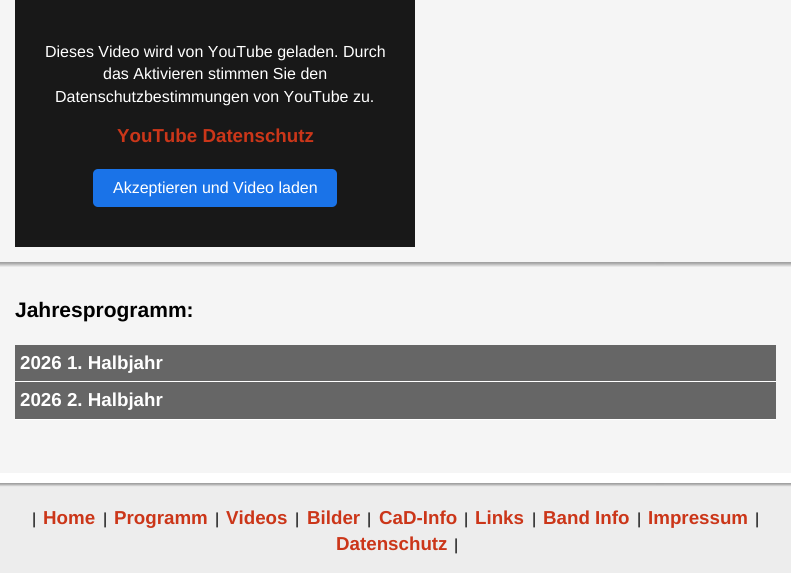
#include <cairo/cairo.h>
#include <math.h>
#include <stddef.h>

static cairo_t *cr;

static void use_color(int r, int g, int b) {
  cairo_set_source_rgb(cr, r / 255.0, g / 255.0, b / 255.0);
}

static void text(double x, double y, const char *s, const char *family, double size, int italic, int bold, int r, int g, int b) {
  cairo_select_font_face(cr, family, italic ? CAIRO_FONT_SLANT_ITALIC : CAIRO_FONT_SLANT_NORMAL,
    bold ? CAIRO_FONT_WEIGHT_BOLD : CAIRO_FONT_WEIGHT_NORMAL);
  cairo_set_font_size(cr, size);
  use_color(r, g, b);
  cairo_move_to(cr, x, y);
  cairo_show_text(cr, s);
}

static void box(double x, double y, double w, double h, int r, int g, int b) {
  use_color(r, g, b);
  cairo_rectangle(cr, x, y, w, h);
  cairo_fill(cr);
}

static void round_rect(double x, double y, double w, double h, double r) {
  cairo_new_sub_path(cr);
  cairo_arc(cr, x + w - r, y + h - r, r, 0, M_PI / 2);
  cairo_arc(cr, x + r, y + h - r, r, M_PI / 2, M_PI);
  cairo_arc(cr, x + r, y + r, r, M_PI, 1.5 * M_PI);
  cairo_arc(cr, x + w - r, y + r, r, 1.5 * M_PI, 2 * M_PI);
  cairo_close_path(cr);
}

static void picture(const char *path, double x, double y, double w, double h) {
  cairo_surface_t *image = cairo_image_surface_create_from_png(path);
  cairo_save(cr);
  cairo_set_source_surface(cr, image, x, y);
  cairo_rectangle(cr, x, y, w, h);
  cairo_fill(cr);
  cairo_restore(cr);
  cairo_surface_destroy(image);
}

static void draw(void) {
  use_color(255, 255, 255);
  cairo_paint(cr);
  box(0, 0, 791, 473, 245, 245, 245);
  box(15, 0, 400, 247, 24, 24, 24);
  use_color(26, 115, 232);
  round_rect(93, 169, 244, 38, 5);
  cairo_fill(cr);
  picture("img_01.png", 0, 262, 791, 5);
  box(15, 345, 761, 36, 102, 102, 102);
  box(15, 381, 761, 1, 255, 255, 255);
  box(15, 382, 761, 37, 102, 102, 102);
  box(15, 419, 761, 1, 255, 255, 255);
  box(0, 487, 791, 86, 237, 237, 237);
  picture("img_02.png", 0, 483, 791, 4);
  text(45, 57, "Dieses Video wird von YouTube geladen. Durch", "Liberation Sans", 16, 0, 0, 255, 255, 255);
  text(103, 79, "das Aktivieren stimmen Sie den", "Liberation Sans", 16, 0, 0, 255, 255, 255);
  text(55, 102, "Datenschutzbestimmungen von YouTube zu.", "Liberation Sans", 16, 0, 0, 255, 255, 255);
  text(117, 142, "YouTube Datenschutz", "Liberation Sans", 18.75, 0, 1, 203, 54, 25);
  text(113, 193, "Akzeptieren und Video laden", "Liberation Sans", 16, 0, 0, 255, 255, 255);
  text(15, 317, "Jahresprogramm:", "Liberation Sans", 21, 0, 1, 0, 0, 0);
  text(20, 369, "2026 1. Halbjahr", "Liberation Sans", 18.75, 0, 1, 255, 255, 255);
  text(20, 406, "2026 2. Halbjahr", "Liberation Sans", 18.75, 0, 1, 255, 255, 255);
  text(32, 524, "|", "Liberation Sans", 16, 0, 0, 0, 0, 0);
  text(43, 524, "Home", "Liberation Sans", 18.75, 0, 1, 203, 54, 25);
  text(103, 524, "|", "Liberation Sans", 16, 0, 0, 0, 0, 0);
  text(114, 524, "Programm", "Liberation Sans", 18.75, 0, 1, 203, 54, 25);
  text(215, 524, "|", "Liberation Sans", 16, 0, 0, 0, 0, 0);
  text(226, 524, "Videos", "Liberation Sans", 18.75, 0, 1, 203, 54, 25);
  text(295, 524, "|", "Liberation Sans", 16, 0, 0, 0, 0, 0);
  text(307, 524, "Bilder", "Liberation Sans", 18.75, 0, 1, 203, 54, 25);
  text(367, 524, "|", "Liberation Sans", 16, 0, 0, 0, 0, 0);
  text(379, 524, "CaD-Info", "Liberation Sans", 18.75, 0, 1, 203, 54, 25);
  text(464, 524, "|", "Liberation Sans", 16, 0, 0, 0, 0, 0);
  text(475, 524, "Links", "Liberation Sans", 18.75, 0, 1, 203, 54, 25);
  text(532, 524, "|", "Liberation Sans", 16, 0, 0, 0, 0, 0);
  text(543, 524, "Band Info", "Liberation Sans", 18.75, 0, 1, 203, 54, 25);
  text(637, 524, "|", "Liberation Sans", 16, 0, 0, 0, 0, 0);
  text(648, 524, "Impressum", "Liberation Sans", 18.75, 0, 1, 203, 54, 25);
  text(755, 524, "|", "Liberation Sans", 16, 0, 0, 0, 0, 0);
  text(336, 550, "Datenschutz", "Liberation Sans", 18.75, 0, 1, 203, 54, 25);
  text(454, 550, "|", "Liberation Sans", 16, 0, 0, 0, 0, 0);
}

int main(void) {
  cairo_surface_t *surface = cairo_image_surface_create(CAIRO_FORMAT_RGB24, 791, 573);
  cr = cairo_create(surface);
  cairo_font_options_t *options = cairo_font_options_create();
  cairo_font_options_set_hint_metrics(options, CAIRO_HINT_METRICS_OFF);
  cairo_font_options_set_hint_style(options, CAIRO_HINT_STYLE_NONE);
  cairo_set_font_options(cr, options);
  cairo_set_miter_limit(cr, 4);
  draw();
  cairo_surface_write_to_png(surface, "out.png");
  cairo_font_options_destroy(options);
  cairo_destroy(cr);
  cairo_surface_destroy(surface);
  return 0;
}
